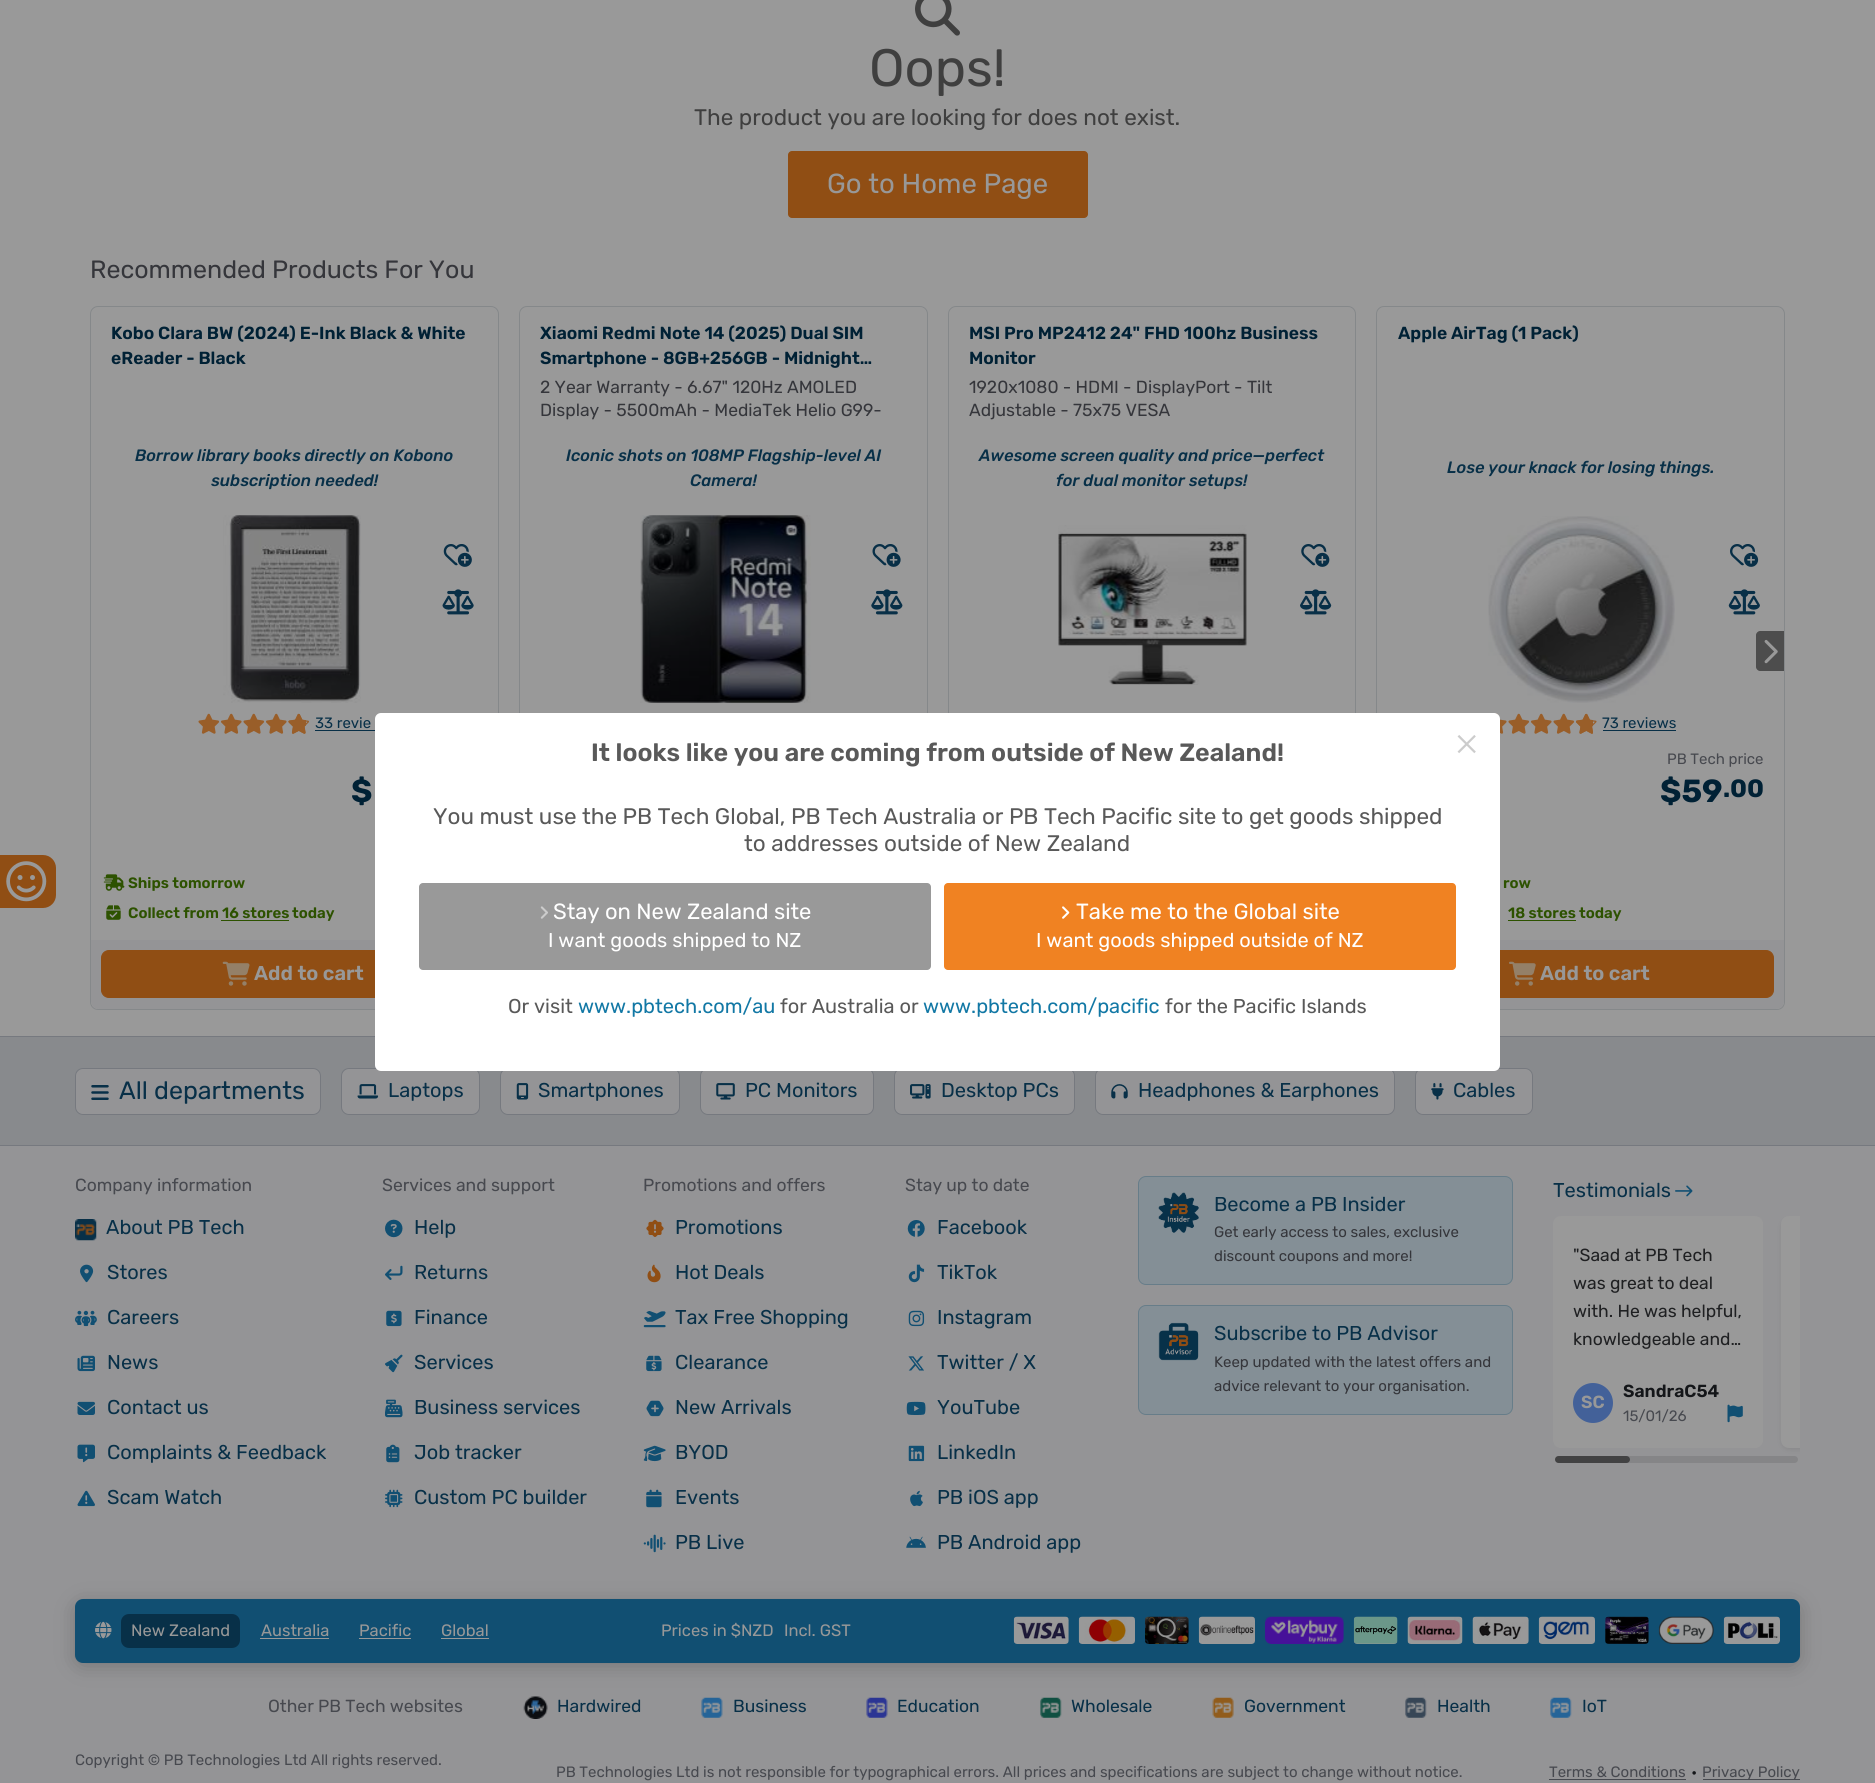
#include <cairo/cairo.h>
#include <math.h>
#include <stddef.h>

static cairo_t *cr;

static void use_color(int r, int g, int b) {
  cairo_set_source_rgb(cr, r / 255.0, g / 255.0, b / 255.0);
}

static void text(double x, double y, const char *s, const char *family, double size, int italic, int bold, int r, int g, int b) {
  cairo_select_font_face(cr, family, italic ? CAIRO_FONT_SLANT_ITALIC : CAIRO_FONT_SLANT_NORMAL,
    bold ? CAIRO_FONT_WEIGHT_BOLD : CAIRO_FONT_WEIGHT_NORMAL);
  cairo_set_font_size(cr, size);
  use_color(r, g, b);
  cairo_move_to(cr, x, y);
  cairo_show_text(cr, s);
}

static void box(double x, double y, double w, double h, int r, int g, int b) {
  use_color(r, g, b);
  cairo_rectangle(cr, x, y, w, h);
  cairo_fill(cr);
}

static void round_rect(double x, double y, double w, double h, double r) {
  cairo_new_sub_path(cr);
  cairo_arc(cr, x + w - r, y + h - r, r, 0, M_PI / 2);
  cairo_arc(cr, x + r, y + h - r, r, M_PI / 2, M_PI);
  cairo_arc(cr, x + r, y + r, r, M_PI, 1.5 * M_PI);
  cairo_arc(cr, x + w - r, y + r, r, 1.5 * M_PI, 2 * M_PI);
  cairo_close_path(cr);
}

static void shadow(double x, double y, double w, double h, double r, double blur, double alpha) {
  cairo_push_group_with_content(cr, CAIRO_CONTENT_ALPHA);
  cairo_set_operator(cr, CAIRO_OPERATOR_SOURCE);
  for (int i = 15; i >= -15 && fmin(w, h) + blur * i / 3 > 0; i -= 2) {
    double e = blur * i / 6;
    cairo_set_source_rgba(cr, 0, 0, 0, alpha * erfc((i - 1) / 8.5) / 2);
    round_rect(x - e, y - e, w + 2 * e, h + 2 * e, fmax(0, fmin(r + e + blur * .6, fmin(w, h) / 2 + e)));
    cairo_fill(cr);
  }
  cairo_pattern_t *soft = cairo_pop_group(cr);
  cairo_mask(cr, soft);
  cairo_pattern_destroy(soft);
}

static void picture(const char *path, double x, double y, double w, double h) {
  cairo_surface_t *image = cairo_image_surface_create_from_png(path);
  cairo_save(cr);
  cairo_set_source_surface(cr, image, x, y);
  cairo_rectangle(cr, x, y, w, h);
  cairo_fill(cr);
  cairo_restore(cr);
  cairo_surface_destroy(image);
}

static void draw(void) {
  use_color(153, 153, 153);
  cairo_paint(cr);
  picture("img_01.png", 915, 0, 45, 36);
  use_color(144, 78, 20);
  round_rect(788, 151, 300, 67, 4);
  cairo_fill(cr);
  round_rect(90.5, 306.5, 408, 703, 7.5);
  use_color(133, 136, 138);
  cairo_set_line_width(cr, 1);
  cairo_stroke(cr);
  picture("img_02.png", 223, 515, 138, 188);
  picture("img_03.png", 443, 544, 29, 23);
  picture("img_04.png", 442, 589, 32, 26);
  picture("img_05.png", 198, 713, 22, 21);
  picture("img_06.png", 221, 713, 21, 21);
  picture("img_05.png", 243, 713, 22, 21);
  picture("img_06.png", 266, 713, 21, 21);
  picture("img_07.png", 288, 713, 21, 21);
  picture("img_08.png", 288, 714, 18, 20);
  box(315, 730, 60, 1, 8, 47, 71);
  picture("img_09.png", 103, 874, 22, 17);
  picture("img_10.png", 106, 905, 15, 15);
  box(221, 920, 68, 1, 45, 82, 0);
  use_color(148, 148, 150);
  cairo_new_path(cr);
  cairo_move_to(cr, 91, 940);
  cairo_line_to(cr, 498, 940);
  cairo_line_to(cr, 498, 1001);
  cairo_curve_to(cr, 498, 1005.5, 494.5, 1009, 490, 1009);
  cairo_line_to(cr, 99, 1009);
  cairo_curve_to(cr, 94.5, 1009, 91, 1005.5, 91, 1001);
  cairo_close_path(cr);
  cairo_fill(cr);
  use_color(144, 78, 20);
  round_rect(101.5, 950.5, 386, 47, 7.5);
  cairo_fill_preserve(cr);
  cairo_stroke(cr);
  picture("img_11.png", 222, 961, 28, 25);
  round_rect(519.5, 306.5, 408, 703, 7.5);
  use_color(133, 136, 138);
  cairo_stroke(cr);
  picture("img_12.png", 640, 515, 171, 188);
  picture("img_13.png", 872, 544, 29, 23);
  picture("img_14.png", 871, 589, 32, 26);
  round_rect(948.5, 306.5, 407, 703, 7.5);
  cairo_stroke(cr);
  picture("img_15.png", 1058, 525, 189, 160);
  picture("img_16.png", 1301, 544, 29, 23);
  picture("img_17.png", 1300, 589, 32, 26);
  round_rect(1376.5, 306.5, 408, 703, 7.5);
  cairo_stroke(cr);
  picture("img_18.png", 1488, 516, 187, 187);
  picture("img_19.png", 1730, 544, 29, 23);
  picture("img_20.png", 1728, 589, 32, 26);
  picture("img_21.png", 1495, 713, 12, 21);
  picture("img_05.png", 1508, 713, 22, 21);
  picture("img_06.png", 1531, 713, 21, 21);
  picture("img_05.png", 1553, 713, 22, 21);
  picture("img_22.png", 1576, 713, 21, 21);
  picture("img_23.png", 1576, 714, 17, 20);
  box(1603, 730, 73, 1, 8, 47, 71);
  box(1508, 920, 68, 1, 45, 82, 0);
  use_color(148, 148, 150);
  cairo_new_path(cr);
  cairo_move_to(cr, 1378, 940);
  cairo_line_to(cr, 1784, 940);
  cairo_line_to(cr, 1784, 1001);
  cairo_curve_to(cr, 1784, 1005.5, 1780.5, 1009, 1776, 1009);
  cairo_line_to(cr, 1386, 1009);
  cairo_curve_to(cr, 1381.5, 1009, 1378, 1005.5, 1378, 1001);
  cairo_close_path(cr);
  cairo_fill(cr);
  use_color(144, 78, 20);
  round_rect(1388.5, 950.5, 385, 47, 7.5);
  cairo_fill_preserve(cr);
  cairo_stroke(cr);
  picture("img_24.png", 1509, 961, 27, 25);
  use_color(77, 77, 77);
  cairo_new_path(cr);
  cairo_move_to(cr, 1760, 631);
  cairo_line_to(cr, 1784, 631);
  cairo_line_to(cr, 1784, 671);
  cairo_line_to(cr, 1760, 671);
  cairo_curve_to(cr, 1758, 671, 1756, 669, 1756, 667);
  cairo_line_to(cr, 1756, 635);
  cairo_curve_to(cr, 1756, 633, 1758, 631, 1760, 631);
  cairo_close_path(cr);
  cairo_fill(cr);
  picture("img_25.png", 1764, 639, 14, 25);
  box(0, 1146, 1875, 637, 148, 148, 150);
  box(0, 1037, 1875, 108, 136, 138, 141);
  box(0, 1036, 1875, 1, 118, 121, 127);
  box(0, 1145, 1875, 1, 118, 121, 127);
  use_color(148, 148, 150);
  round_rect(75.5, 1068.5, 245, 46, 7.5);
  cairo_fill_preserve(cr);
  use_color(118, 121, 127);
  cairo_stroke(cr);
  picture("img_26.png", 91, 1085, 18, 15);
  use_color(148, 148, 150);
  round_rect(341.5, 1068.5, 138, 46, 7.5);
  cairo_fill_preserve(cr);
  use_color(118, 121, 127);
  cairo_stroke(cr);
  picture("img_27.png", 357, 1084, 22, 15);
  use_color(148, 148, 150);
  round_rect(500.5, 1068.5, 179, 46, 7.5);
  cairo_fill_preserve(cr);
  use_color(118, 121, 127);
  cairo_stroke(cr);
  picture("img_28.png", 516, 1083, 13, 17);
  use_color(148, 148, 150);
  round_rect(700.5, 1068.5, 173, 46, 7.5);
  cairo_fill_preserve(cr);
  use_color(118, 121, 127);
  cairo_stroke(cr);
  picture("img_29.png", 716, 1083, 19, 17);
  use_color(148, 148, 150);
  round_rect(894.5, 1068.5, 180, 46, 7.5);
  cairo_fill_preserve(cr);
  use_color(118, 121, 127);
  cairo_stroke(cr);
  picture("img_30.png", 910, 1084, 21, 15);
  use_color(148, 148, 150);
  round_rect(1095.5, 1068.5, 299, 46, 7.5);
  cairo_fill_preserve(cr);
  use_color(118, 121, 127);
  cairo_stroke(cr);
  picture("img_31.png", 1111, 1084, 17, 15);
  use_color(148, 148, 150);
  round_rect(1415.5, 1068.5, 117, 46, 7.5);
  cairo_fill_preserve(cr);
  use_color(118, 121, 127);
  cairo_stroke(cr);
  picture("img_32.png", 1431, 1083, 13, 17);
  picture("img_33.png", 75, 1219, 22, 22);
  picture("img_34.png", 80, 1264, 14, 19);
  picture("img_35.png", 75, 1310, 22, 17);
  picture("img_36.png", 77, 1355, 18, 17);
  picture("img_37.png", 77, 1401, 18, 14);
  picture("img_38.png", 77, 1444, 18, 19);
  picture("img_39.png", 77, 1490, 18, 17);
  picture("img_40.png", 385, 1219, 18, 19);
  picture("img_41.png", 385, 1265, 18, 15);
  picture("img_42.png", 386, 1310, 16, 17);
  picture("img_43.png", 385, 1354, 18, 19);
  picture("img_44.png", 385, 1399, 18, 19);
  picture("img_45.png", 386, 1444, 14, 19);
  picture("img_46.png", 385, 1489, 18, 19);
  picture("img_47.png", 646, 1219, 18, 18);
  picture("img_48.png", 647, 1264, 14, 19);
  picture("img_49.png", 643, 1311, 23, 17);
  picture("img_50.png", 646, 1355, 16, 17);
  picture("img_51.png", 646, 1400, 18, 17);
  picture("img_52.png", 643, 1445, 23, 17);
  picture("img_53.png", 646, 1489, 16, 19);
  picture("img_54.png", 643, 1534, 23, 19);
  picture("img_55.png", 907, 1220, 18, 17);
  picture("img_56.png", 908, 1264, 17, 19);
  picture("img_57.png", 908, 1310, 17, 17);
  picture("img_58.png", 908, 1356, 16, 15);
  picture("img_59.png", 906, 1401, 20, 14);
  picture("img_60.png", 908, 1445, 17, 17);
  picture("img_61.png", 910, 1490, 13, 17);
  picture("img_62.png", 906, 1536, 20, 12);
  use_color(132, 143, 150);
  round_rect(1138.5, 1176.5, 374, 108, 7.5);
  cairo_fill_preserve(cr);
  use_color(103, 125, 137);
  cairo_stroke(cr);
  picture("img_63.png", 1158, 1192, 41, 41);
  use_color(132, 143, 150);
  round_rect(1138.5, 1305.5, 374, 109, 7.5);
  cairo_fill_preserve(cr);
  use_color(103, 125, 137);
  cairo_stroke(cr);
  picture("img_64.png", 1158, 1322, 41, 39);
  picture("img_65.png", 1675, 1185, 18, 12);
  use_color(153, 153, 153);
  round_rect(1553, 1216, 210, 232, 8);
  cairo_fill(cr);
  use_color(67, 97, 153);
  cairo_arc(cr, 1593, 1403, 20, 0, 2 * M_PI);
  cairo_fill(cr);
  picture("img_66.png", 1727, 1404, 16, 19);
  cairo_save(cr);
  cairo_rectangle(cr, 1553, 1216, 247, 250);
  cairo_clip(cr);
  use_color(0, 0, 0);
  shadow(1781, 1219, 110, 231, 8, 2.5, 0.07);
  cairo_restore(cr);
  use_color(153, 153, 153);
  cairo_new_path(cr);
  cairo_move_to(cr, 1789, 1216);
  cairo_line_to(cr, 1800, 1216);
  cairo_line_to(cr, 1800, 1448);
  cairo_line_to(cr, 1789, 1448);
  cairo_curve_to(cr, 1784.5, 1448, 1781, 1444.5, 1781, 1440);
  cairo_line_to(cr, 1781, 1224);
  cairo_curve_to(cr, 1781, 1219.5, 1784.5, 1216, 1789, 1216);
  cairo_close_path(cr);
  cairo_fill(cr);
  use_color(133, 133, 135);
  round_rect(1555, 1456, 243, 7, 3.5);
  cairo_fill(cr);
  cairo_set_source_rgba(cr, 0, 0, 0, 0.5);
  round_rect(1555, 1456, 75, 7, 3.5);
  cairo_fill(cr);
  use_color(0, 0, 0);
  shadow(75, 1603, 1725, 63, 8, 10, 0.2);
  use_color(17, 79, 114);
  round_rect(75, 1599, 1725, 64, 8);
  cairo_fill(cr);
  picture("img_67.png", 95, 1621, 17, 18);
  use_color(8, 48, 72);
  round_rect(121, 1614, 119, 34, 8);
  cairo_fill(cr);
  box(260, 1638, 69, 1, 153, 153, 153);
  box(359, 1638, 52, 1, 153, 153, 153);
  box(441, 1638, 48, 1, 153, 153, 153);
  picture("img_68.png", 1013, 1616, 56, 28);
  picture("img_69.png", 1078, 1616, 57, 28);
  picture("img_70.png", 1145, 1616, 44, 28);
  picture("img_71.png", 1198, 1616, 57, 28);
  picture("img_72.png", 1265, 1616, 79, 28);
  picture("img_73.png", 1353, 1616, 45, 28);
  picture("img_74.png", 1407, 1616, 56, 28);
  picture("img_75.png", 1472, 1616, 57, 28);
  picture("img_76.png", 1538, 1616, 57, 28);
  picture("img_77.png", 1605, 1616, 44, 28);
  picture("img_78.png", 1658, 1616, 56, 28);
  picture("img_79.png", 1723, 1616, 57, 28);
  picture("img_80.png", 523, 1696, 25, 23);
  picture("img_81.png", 701, 1697, 22, 21);
  picture("img_82.png", 866, 1697, 22, 21);
  picture("img_83.png", 1040, 1697, 22, 21);
  picture("img_84.png", 1212, 1697, 22, 21);
  picture("img_85.png", 1405, 1697, 22, 21);
  picture("img_86.png", 1550, 1697, 22, 21);
  box(1549, 1779, 137, 1, 71, 73, 79);
  box(1703, 1779, 97, 1, 71, 73, 79);
  use_color(144, 78, 20);
  round_rect(-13, 855, 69, 53, 13);
  cairo_fill(cr);
  picture("img_87.png", 6, 861, 41, 41);
  use_color(255, 255, 255);
  round_rect(375, 713, 1125, 358, 6);
  cairo_fill(cr);
  use_color(153, 153, 153);
  round_rect(419, 883, 512, 87, 4);
  cairo_fill(cr);
  picture("img_88.png", 540, 906, 8, 13);
  use_color(240, 130, 34);
  round_rect(944, 883, 512, 87, 4);
  cairo_fill(cr);
  picture("img_89.png", 1062, 906, 8, 13);
  text(869, 86, "Oops!", "Rubik", 52.5, 0, 0, 63, 63, 63);
  text(694, 125, "The product you are looking for does not exist.", "Rubik", 22.5, 0, 0, 63, 63, 63);
  text(827, 193, "Go to Home Page", "Rubik", 27.5, 0, 0, 152, 152, 152);
  text(90, 278, "Recommended Products For You", "Rubik", 25, 0, 0, 53, 54, 59);
  text(111, 339, "Kobo Clara BW (2024) E-Ink Black & White", "Rubik SemiBold", 17.5, 0, 0, 0, 33, 53);
  text(111, 364, "eReader - Black", "Rubik SemiBold", 17.5, 0, 0, 0, 33, 53);
  text(135, 461, "Borrow library books directly on Kobono", "Rubik Medium", 16.5, 1, 0, 8, 48, 72);
  text(211, 486, "subscription needed!", "Rubik Medium", 16.5, 1, 0, 8, 48, 72);
  text(315, 728, "33 revie", "Rubik", 15, 0, 0, 8, 48, 72);
  text(351, 802, "$", "Rubik", 32, 0, 1, 0, 33, 53);
  text(128, 888, "Ships tomorrow", "Rubik SemiBold", 15, 0, 0, 45, 82, 0);
  text(128, 918, "Collect from 16 stores", "Rubik SemiBold", 15, 0, 0, 45, 82, 0);
  text(292, 918, "today", "Rubik SemiBold", 15, 0, 0, 45, 82, 0);
  text(254, 980, "Add to cart", "Rubik SemiBold", 20, 0, 0, 152, 152, 152);
  text(540, 339, "Xiaomi Redmi Note 14 (2025) Dual SIM", "Rubik SemiBold", 17.5, 0, 0, 0, 33, 53);
  text(540, 364, "Smartphone - 8GB+256GB - Midnight…", "Rubik SemiBold", 17.5, 0, 0, 0, 33, 53);
  text(540, 393, "2 Year Warranty - 6.67\" 120Hz AMOLED", "Rubik", 17.5, 0, 0, 53, 54, 59);
  text(540, 416, "Display - 5500mAh - MediaTek Helio G99-", "Rubik", 17.5, 0, 0, 53, 54, 59);
  text(566, 461, "Iconic shots on 108MP Flagship-level AI", "Rubik Medium", 16.5, 1, 0, 8, 48, 72);
  text(690, 486, "Camera!", "Rubik Medium", 16.5, 1, 0, 8, 48, 72);
  text(969, 339, "MSI Pro MP2412 24\" FHD 100hz Business", "Rubik SemiBold", 17.5, 0, 0, 0, 33, 53);
  text(969, 364, "Monitor", "Rubik SemiBold", 17.5, 0, 0, 0, 33, 53);
  text(969, 393, "1920x1080 - HDMI - DisplayPort - Tilt", "Rubik", 17.5, 0, 0, 53, 54, 59);
  text(969, 416, "Adjustable - 75x75 VESA", "Rubik", 17.5, 0, 0, 53, 54, 59);
  text(979, 461, "Awesome screen quality and price—perfect", "Rubik Medium", 16.5, 1, 0, 8, 48, 72);
  text(1056, 486, "for dual monitor setups!", "Rubik Medium", 16.5, 1, 0, 8, 48, 72);
  text(1398, 339, "Apple AirTag (1 Pack)", "Rubik SemiBold", 17.5, 0, 0, 0, 33, 53);
  text(1447, 473, "Lose your knack for losing things.", "Rubik Medium", 16.5, 1, 0, 8, 48, 72);
  text(1602, 728, "73 reviews", "Rubik", 15, 0, 0, 8, 48, 72);
  text(1667, 764, "PB Tech price", "Rubik", 15, 0, 0, 71, 73, 79);
  text(1660, 802, "$59", "Rubik", 32, 0, 1, 0, 33, 53);
  text(1723, 797, ".00", "Rubik", 25, 0, 1, 0, 33, 53);
  text(1503, 888, "row", "Rubik SemiBold", 15, 0, 0, 45, 82, 0);
  text(1508, 918, "18 stores", "Rubik SemiBold", 15, 0, 0, 45, 82, 0);
  text(1579, 918, "today", "Rubik SemiBold", 15, 0, 0, 45, 82, 0);
  text(1540, 980, "Add to cart", "Rubik SemiBold", 20, 0, 0, 152, 152, 152);
  text(119, 1099, "All departments", "Rubik", 25, 0, 0, 8, 48, 72);
  text(388, 1097, "Laptops", "Rubik", 20, 0, 0, 8, 48, 72);
  text(538, 1097, "Smartphones", "Rubik", 20, 0, 0, 8, 48, 72);
  text(745, 1097, "PC Monitors", "Rubik", 20, 0, 0, 8, 48, 72);
  text(941, 1097, "Desktop PCs", "Rubik", 20, 0, 0, 8, 48, 72);
  text(1138, 1097, "Headphones & Earphones", "Rubik", 20, 0, 0, 8, 48, 72);
  text(1453, 1097, "Cables", "Rubik", 20, 0, 0, 8, 48, 72);
  text(75, 1191, "Company information", "Rubik", 17.5, 0, 0, 71, 73, 79);
  text(106, 1234, "About PB Tech", "Rubik", 20, 0, 0, 8, 48, 72);
  text(107, 1279, "Stores", "Rubik", 20, 0, 0, 8, 48, 72);
  text(107, 1324, "Careers", "Rubik", 20, 0, 0, 8, 48, 72);
  text(107, 1369, "News", "Rubik", 20, 0, 0, 8, 48, 72);
  text(107, 1414, "Contact us", "Rubik", 20, 0, 0, 8, 48, 72);
  text(107, 1459, "Complaints & Feedback", "Rubik", 20, 0, 0, 8, 48, 72);
  text(107, 1504, "Scam Watch", "Rubik", 20, 0, 0, 8, 48, 72);
  text(382, 1191, "Services and support", "Rubik", 17.5, 0, 0, 71, 73, 79);
  text(414, 1234, "Help", "Rubik", 20, 0, 0, 8, 48, 72);
  text(414, 1279, "Returns", "Rubik", 20, 0, 0, 8, 48, 72);
  text(414, 1324, "Finance", "Rubik", 20, 0, 0, 8, 48, 72);
  text(414, 1369, "Services", "Rubik", 20, 0, 0, 8, 48, 72);
  text(414, 1414, "Business services", "Rubik", 20, 0, 0, 8, 48, 72);
  text(414, 1459, "Job tracker", "Rubik", 20, 0, 0, 8, 48, 72);
  text(414, 1504, "Custom PC builder", "Rubik", 20, 0, 0, 8, 48, 72);
  text(643, 1191, "Promotions and offers", "Rubik", 17.5, 0, 0, 71, 73, 79);
  text(675, 1234, "Promotions", "Rubik", 20, 0, 0, 8, 48, 72);
  text(675, 1279, "Hot Deals", "Rubik", 20, 0, 0, 8, 48, 72);
  text(675, 1324, "Tax Free Shopping", "Rubik", 20, 0, 0, 8, 48, 72);
  text(675, 1369, "Clearance", "Rubik", 20, 0, 0, 8, 48, 72);
  text(675, 1414, "New Arrivals", "Rubik", 20, 0, 0, 8, 48, 72);
  text(675, 1459, "BYOD", "Rubik", 20, 0, 0, 8, 48, 72);
  text(675, 1504, "Events", "Rubik", 20, 0, 0, 8, 48, 72);
  text(675, 1549, "PB Live", "Rubik", 20, 0, 0, 8, 48, 72);
  text(905, 1191, "Stay up to date", "Rubik", 17.5, 0, 0, 71, 73, 79);
  text(937, 1234, "Facebook", "Rubik", 20, 0, 0, 8, 48, 72);
  text(937, 1279, "TikTok", "Rubik", 20, 0, 0, 8, 48, 72);
  text(937, 1324, "Instagram", "Rubik", 20, 0, 0, 8, 48, 72);
  text(937, 1369, "Twitter / X", "Rubik", 20, 0, 0, 8, 48, 72);
  text(937, 1414, "YouTube", "Rubik", 20, 0, 0, 8, 48, 72);
  text(937, 1459, "LinkedIn", "Rubik", 20, 0, 0, 8, 48, 72);
  text(937, 1504, "PB iOS app", "Rubik", 20, 0, 0, 8, 48, 72);
  text(937, 1549, "PB Android app", "Rubik", 20, 0, 0, 8, 48, 72);
  text(1214, 1211, "Become a PB Insider", "Rubik", 20, 0, 0, 8, 48, 72);
  text(1214, 1237, "Get early access to sales, exclusive", "Rubik", 15, 0, 0, 53, 54, 59);
  text(1214, 1261, "discount coupons and more!", "Rubik", 15, 0, 0, 53, 54, 59);
  text(1214, 1340, "Subscribe to PB Advisor", "Rubik", 20, 0, 0, 8, 48, 72);
  text(1214, 1367, "Keep updated with the latest offers and", "Rubik", 15, 0, 0, 53, 54, 59);
  text(1214, 1391, "advice relevant to your organisation.", "Rubik", 15, 0, 0, 53, 54, 59);
  text(1553, 1197, "Testimonials", "Rubik", 20, 0, 0, 8, 48, 72);
  text(1573, 1261, "\"Saad at PB Tech", "Rubik", 17.5, 0, 0, 31, 32, 34);
  text(1573, 1289, "was great to deal", "Rubik", 17.5, 0, 0, 31, 32, 34);
  text(1573, 1317, "with. He was helpful,", "Rubik", 17.5, 0, 0, 31, 32, 34);
  text(1573, 1345, "knowledgeable and…", "Rubik", 17.5, 0, 0, 31, 32, 34);
  text(1581, 1408, "SC", "Rubik SemiBold", 17.5, 0, 0, 152, 152, 152);
  text(1623, 1397, "SandraC54", "Rubik SemiBold", 17.5, 0, 0, 20, 22, 25);
  text(1623, 1421, "15/01/26", "Rubik", 15, 0, 0, 71, 73, 79);
  text(131, 1636, "New Zealand", "Rubik", 16.5, 0, 0, 152, 152, 152);
  text(261, 1636, "Australia", "Rubik", 16.5, 0, 0, 152, 152, 152);
  text(359, 1636, "Pacific", "Rubik", 16.5, 0, 0, 152, 152, 152);
  text(441, 1636, "Global", "Rubik", 16.5, 0, 0, 152, 152, 152);
  text(661, 1636, "Prices in $NZD", "Rubik", 16.5, 0, 0, 152, 152, 152);
  text(784, 1636, "Incl. GST", "Rubik", 16.5, 0, 0, 152, 152, 152);
  text(268, 1712, "Other PB Tech websites", "Rubik", 17.5, 0, 0, 71, 73, 79);
  text(557, 1712, "Hardwired", "Rubik", 17.5, 0, 0, 8, 48, 72);
  text(733, 1712, "Business", "Rubik", 17.5, 0, 0, 8, 48, 72);
  text(897, 1712, "Education", "Rubik", 17.5, 0, 0, 8, 48, 72);
  text(1071, 1712, "Wholesale", "Rubik", 17.5, 0, 0, 8, 48, 72);
  text(1244, 1712, "Government", "Rubik", 17.5, 0, 0, 8, 48, 72);
  text(1437, 1712, "Health", "Rubik", 17.5, 0, 0, 8, 48, 72);
  text(1582, 1712, "IoT", "Rubik", 17.5, 0, 0, 8, 48, 72);
  text(75, 1765, "Copyright © PB Technologies Ltd All rights reserved.", "Rubik", 15, 0, 0, 71, 73, 79);
  text(556, 1777, "PB Technologies Ltd is not responsible for typographical errors. All prices and specifications are subject to change without notice.", "Rubik", 15, 0, 0, 71, 73, 79);
  text(1549, 1777, "Terms & Conditions", "Rubik", 15, 0, 0, 71, 73, 79);
  text(1691, 1778, "•", "Rubik", 16.5, 0, 0, 20, 22, 25);
  text(1702, 1777, "Privacy Policy", "Rubik", 15, 0, 0, 71, 73, 79);
  text(591, 761, "It looks like you are coming from outside of New Zealand!", "Rubik SemiBold", 25, 0, 0, 89, 89, 89);
  text(433, 824, "You must use the PB Tech Global, PB Tech Australia or PB Tech Pacific site to get goods shipped", "Rubik", 22.5, 0, 0, 89, 89, 89);
  text(744, 851, "to addresses outside of New Zealand", "Rubik", 22.5, 0, 0, 89, 89, 89);
  text(553, 919, "Stay on New Zealand site", "Rubik", 22, 0, 0, 255, 255, 255);
  text(548, 947, "I want goods shipped to NZ", "Rubik", 20, 0, 0, 255, 255, 255);
  text(1076, 919, "Take me to the Global site", "Rubik", 22, 0, 0, 255, 255, 255);
  text(1036, 947, "I want goods shipped outside of NZ", "Rubik", 20, 0, 0, 255, 255, 255);
  text(508, 1013, "Or visit", "Rubik", 20, 0, 0, 89, 89, 89);
  text(578, 1013, "www.pbtech.com/au", "Rubik", 20, 0, 0, 18, 120, 165);
  text(780, 1013, "for Australia or", "Rubik", 20, 0, 0, 89, 89, 89);
  text(923, 1013, "www.pbtech.com/pacific", "Rubik", 20, 0, 0, 18, 120, 165);
  text(1165, 1013, "for the Pacific Islands", "Rubik", 20, 0, 0, 89, 89, 89);
  text(1454, 759, "×", "Liberation Serif", 45, 0, 0, 204, 204, 204);
}

int main(void) {
  cairo_surface_t *surface = cairo_image_surface_create(CAIRO_FORMAT_RGB24, 1875, 1783);
  cr = cairo_create(surface);
  cairo_font_options_t *options = cairo_font_options_create();
  cairo_font_options_set_hint_metrics(options, CAIRO_HINT_METRICS_OFF);
  cairo_font_options_set_hint_style(options, CAIRO_HINT_STYLE_NONE);
  cairo_set_font_options(cr, options);
  cairo_set_miter_limit(cr, 4);
  draw();
  cairo_surface_write_to_png(surface, "out.png");
  cairo_font_options_destroy(options);
  cairo_destroy(cr);
  cairo_surface_destroy(surface);
  return 0;
}
